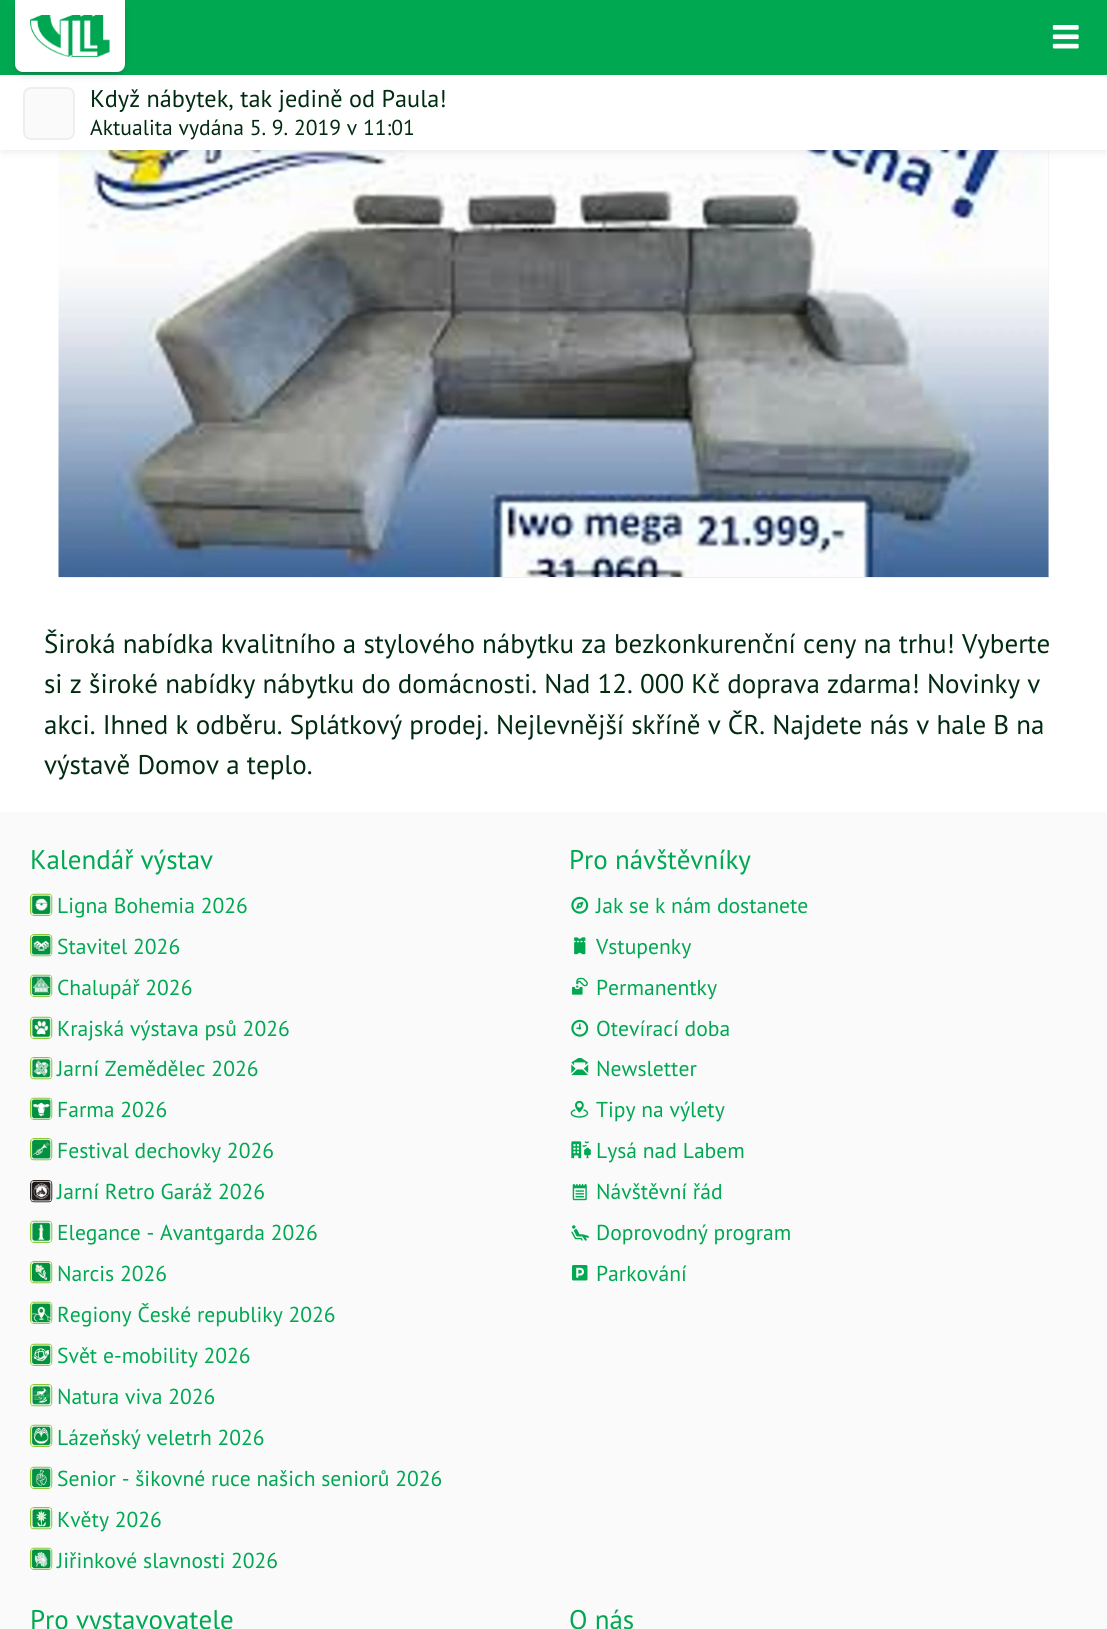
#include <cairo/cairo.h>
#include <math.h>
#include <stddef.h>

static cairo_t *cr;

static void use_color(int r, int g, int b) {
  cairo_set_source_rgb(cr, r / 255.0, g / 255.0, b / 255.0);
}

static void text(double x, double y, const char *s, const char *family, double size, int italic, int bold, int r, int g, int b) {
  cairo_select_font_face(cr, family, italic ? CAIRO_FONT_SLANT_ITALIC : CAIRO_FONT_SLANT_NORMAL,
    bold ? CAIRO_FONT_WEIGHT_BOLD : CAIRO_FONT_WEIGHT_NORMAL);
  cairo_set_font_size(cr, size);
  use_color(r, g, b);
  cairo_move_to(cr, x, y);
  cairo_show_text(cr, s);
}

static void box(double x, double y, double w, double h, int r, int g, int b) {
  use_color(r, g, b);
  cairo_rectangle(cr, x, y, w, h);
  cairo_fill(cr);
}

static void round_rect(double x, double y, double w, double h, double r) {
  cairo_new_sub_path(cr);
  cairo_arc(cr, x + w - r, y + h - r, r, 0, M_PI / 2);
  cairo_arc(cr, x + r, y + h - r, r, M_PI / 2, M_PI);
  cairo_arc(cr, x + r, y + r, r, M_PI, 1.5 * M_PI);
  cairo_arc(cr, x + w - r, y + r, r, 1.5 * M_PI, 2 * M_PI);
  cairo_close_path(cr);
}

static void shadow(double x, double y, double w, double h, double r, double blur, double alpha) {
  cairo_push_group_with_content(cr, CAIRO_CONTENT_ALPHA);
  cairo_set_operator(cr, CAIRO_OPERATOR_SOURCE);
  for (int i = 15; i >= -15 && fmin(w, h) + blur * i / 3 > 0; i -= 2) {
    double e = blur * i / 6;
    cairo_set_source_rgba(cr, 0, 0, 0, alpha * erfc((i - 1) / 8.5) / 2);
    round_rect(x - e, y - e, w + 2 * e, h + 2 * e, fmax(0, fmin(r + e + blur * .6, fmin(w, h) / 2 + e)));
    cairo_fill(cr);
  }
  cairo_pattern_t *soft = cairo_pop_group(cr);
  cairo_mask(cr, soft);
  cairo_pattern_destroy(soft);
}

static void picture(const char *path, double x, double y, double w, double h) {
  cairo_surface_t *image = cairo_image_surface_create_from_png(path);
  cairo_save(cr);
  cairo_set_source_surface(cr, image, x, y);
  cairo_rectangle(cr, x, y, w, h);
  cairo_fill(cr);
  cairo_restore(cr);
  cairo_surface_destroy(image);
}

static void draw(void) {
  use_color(255, 255, 255);
  cairo_paint(cr);
  box(59, 150, 990, 428, 238, 238, 238);
  picture("img_03.png", 58, 150, 991, 427);
  use_color(50, 50, 93);
  shadow(2, 80, 1104, 72, 0, 4, 0.1);
  box(0, 0, 1107, 75, 0, 168, 81);
  box(0, 75, 1107, 75, 255, 255, 255);
  use_color(0, 0, 0);
  shadow(17, 3, 106, 69, 6, 2, 0.3);
  use_color(50, 50, 93);
  shadow(17, 5, 106, 69, 6, 4, 0.25);
  use_color(255, 255, 255);
  cairo_new_path(cr);
  cairo_move_to(cr, 15, 0);
  cairo_line_to(cr, 125, 0);
  cairo_line_to(cr, 125, 64);
  cairo_curve_to(cr, 125, 68.5, 121.5, 72, 117, 72);
  cairo_line_to(cr, 23, 72);
  cairo_curve_to(cr, 18.5, 72, 15, 68.5, 15, 64);
  cairo_close_path(cr);
  cairo_fill(cr);
  picture("img_01.png", 30, 15, 80, 42);
  picture("img_02.png", 1052, 25, 27, 24);
  use_color(250, 250, 250);
  round_rect(24, 88, 50, 51, 7);
  cairo_fill_preserve(cr);
  use_color(238, 238, 238);
  cairo_stroke(cr);
  box(0, 812, 1107, 817, 250, 250, 250);
  picture("img_04.png", 30, 893, 23, 23);
  picture("img_05.png", 30, 934, 23, 23);
  picture("img_06.png", 30, 974, 23, 23);
  picture("img_07.png", 30, 1016, 23, 23);
  picture("img_08.png", 30, 1057, 23, 23);
  picture("img_09.png", 30, 1097, 23, 23);
  picture("img_10.png", 30, 1138, 23, 23);
  picture("img_11.png", 30, 1180, 23, 23);
  picture("img_12.png", 30, 1220, 23, 23);
  picture("img_13.png", 30, 1261, 23, 23);
  picture("img_14.png", 30, 1301, 23, 23);
  picture("img_15.png", 30, 1343, 23, 23);
  picture("img_16.png", 30, 1384, 23, 23);
  picture("img_17.png", 30, 1424, 23, 23);
  picture("img_18.png", 30, 1466, 23, 23);
  picture("img_19.png", 30, 1507, 23, 23);
  picture("img_20.png", 30, 1547, 23, 23);
  picture("img_21.png", 571, 896, 18, 18);
  picture("img_22.png", 574, 937, 12, 18);
  picture("img_23.png", 572, 977, 16, 18);
  picture("img_24.png", 571, 1019, 18, 18);
  picture("img_25.png", 571, 1058, 18, 18);
  picture("img_26.png", 570, 1100, 19, 18);
  picture("img_27.png", 571, 1141, 20, 18);
  picture("img_28.png", 572, 1184, 15, 17);
  picture("img_29.png", 571, 1225, 18, 16);
  picture("img_30.png", 572, 1265, 16, 16);
  text(90, 107, "Když nábytek, tak jedině od Paula!", "PT Sans", 24.25, 0, 0, 0, 43, 17);
  text(90, 135, "Aktualita vydána 5. 9. 2019 v 11:01", "PT Sans", 21.6, 0, 0, 0, 43, 17);
  text(44, 653, "Široká nabídka kvalitního a stylového nábytku za bezkonkurenční ceny na trhu! Vyberte", "PT Sans", 27, 0, 0, 0, 43, 17);
  text(44, 693, "si z široké nabídky nábytku do domácnosti. Nad 12. 000 Kč doprava zdarma! Novinky v", "PT Sans", 27, 0, 0, 0, 43, 17);
  text(44, 734, "akci. Ihned k odběru. Splátkový prodej. Nejlevnější skříně v ČR. Najdete nás v hale B na", "PT Sans", 27, 0, 0, 0, 43, 17);
  text(44, 774, "výstavě Domov a teplo.", "PT Sans", 27, 0, 0, 0, 43, 17);
  text(30, 869, "Kalendář výstav", "PT Sans", 27, 0, 0, 0, 168, 81);
  text(57, 913, "Ligna Bohemia 2026", "PT Sans", 21.6, 0, 0, 0, 168, 81);
  text(57, 954, "Stavitel 2026", "PT Sans", 21.6, 0, 0, 0, 168, 81);
  cairo_save(cr);
  cairo_rectangle(cr, 30, 974, 509, 25);
  cairo_clip(cr);
  text(57, 995, "Chalupář 2026", "PT Sans", 21.6, 0, 0, 0, 168, 81);
  cairo_restore(cr);
  text(57, 1036, "Krajská výstava psů 2026", "PT Sans", 21.6, 0, 0, 0, 168, 81);
  text(57, 1076, "Jarní Zemědělec 2026", "PT Sans", 21.6, 0, 0, 0, 168, 81);
  text(57, 1117, "Farma 2026", "PT Sans", 21.6, 0, 0, 0, 168, 81);
  text(57, 1158, "Festival dechovky 2026", "PT Sans", 21.6, 0, 0, 0, 168, 81);
  text(57, 1199, "Jarní Retro Garáž 2026", "PT Sans", 21.6, 0, 0, 0, 168, 81);
  text(57, 1240, "Elegance - Avantgarda 2026", "PT Sans", 21.6, 0, 0, 0, 168, 81);
  text(57, 1281, "Narcis 2026", "PT Sans", 21.6, 0, 0, 0, 168, 81);
  text(57, 1322, "Regiony České republiky 2026", "PT Sans", 21.6, 0, 0, 0, 168, 81);
  text(57, 1363, "Svět e-mobility 2026", "PT Sans", 21.6, 0, 0, 0, 168, 81);
  text(57, 1404, "Natura viva 2026", "PT Sans", 21.6, 0, 0, 0, 168, 81);
  cairo_save(cr);
  cairo_rectangle(cr, 30, 1424, 509, 25);
  cairo_clip(cr);
  text(57, 1445, "Lázeňský veletrh 2026", "PT Sans", 21.6, 0, 0, 0, 168, 81);
  cairo_restore(cr);
  text(57, 1486, "Senior - šikovné ruce našich seniorů 2026", "PT Sans", 21.6, 0, 0, 0, 168, 81);
  text(57, 1527, "Květy 2026", "PT Sans", 21.6, 0, 0, 0, 168, 81);
  text(57, 1568, "Jiřinkové slavnosti 2026", "PT Sans", 21.6, 0, 0, 0, 168, 81);
  text(569, 869, "Pro návštěvníky", "PT Sans", 27, 0, 0, 0, 168, 81);
  text(596, 913, "Jak se k nám dostanete", "PT Sans", 21.6, 0, 0, 0, 168, 81);
  text(596, 954, "Vstupenky", "PT Sans", 21.6, 0, 0, 0, 168, 81);
  cairo_save(cr);
  cairo_rectangle(cr, 569, 974, 508, 25);
  cairo_clip(cr);
  text(596, 995, "Permanentky", "PT Sans", 21.6, 0, 0, 0, 168, 81);
  cairo_restore(cr);
  text(596, 1036, "Otevírací doba", "PT Sans", 21.6, 0, 0, 0, 168, 81);
  text(596, 1076, "Newsletter", "PT Sans", 21.6, 0, 0, 0, 168, 81);
  text(596, 1117, "Tipy na výlety", "PT Sans", 21.6, 0, 0, 0, 168, 81);
  text(596, 1158, "Lysá nad Labem", "PT Sans", 21.6, 0, 0, 0, 168, 81);
  text(596, 1199, "Návštěvní řád", "PT Sans", 21.6, 0, 0, 0, 168, 81);
  text(596, 1240, "Doprovodný program", "PT Sans", 21.6, 0, 0, 0, 168, 81);
  text(596, 1281, "Parkování", "PT Sans", 21.6, 0, 0, 0, 168, 81);
  text(30, 1629, "Pro vystavovatele", "PT Sans", 27, 0, 0, 0, 168, 81);
  text(569, 1629, "O nás", "PT Sans", 27, 0, 0, 0, 168, 81);
}

int main(void) {
  cairo_surface_t *surface = cairo_image_surface_create(CAIRO_FORMAT_RGB24, 1107, 1629);
  cr = cairo_create(surface);
  cairo_font_options_t *options = cairo_font_options_create();
  cairo_font_options_set_hint_metrics(options, CAIRO_HINT_METRICS_OFF);
  cairo_font_options_set_hint_style(options, CAIRO_HINT_STYLE_NONE);
  cairo_set_font_options(cr, options);
  cairo_set_miter_limit(cr, 4);
  draw();
  cairo_surface_write_to_png(surface, "out.png");
  cairo_font_options_destroy(options);
  cairo_destroy(cr);
  cairo_surface_destroy(surface);
  return 0;
}
